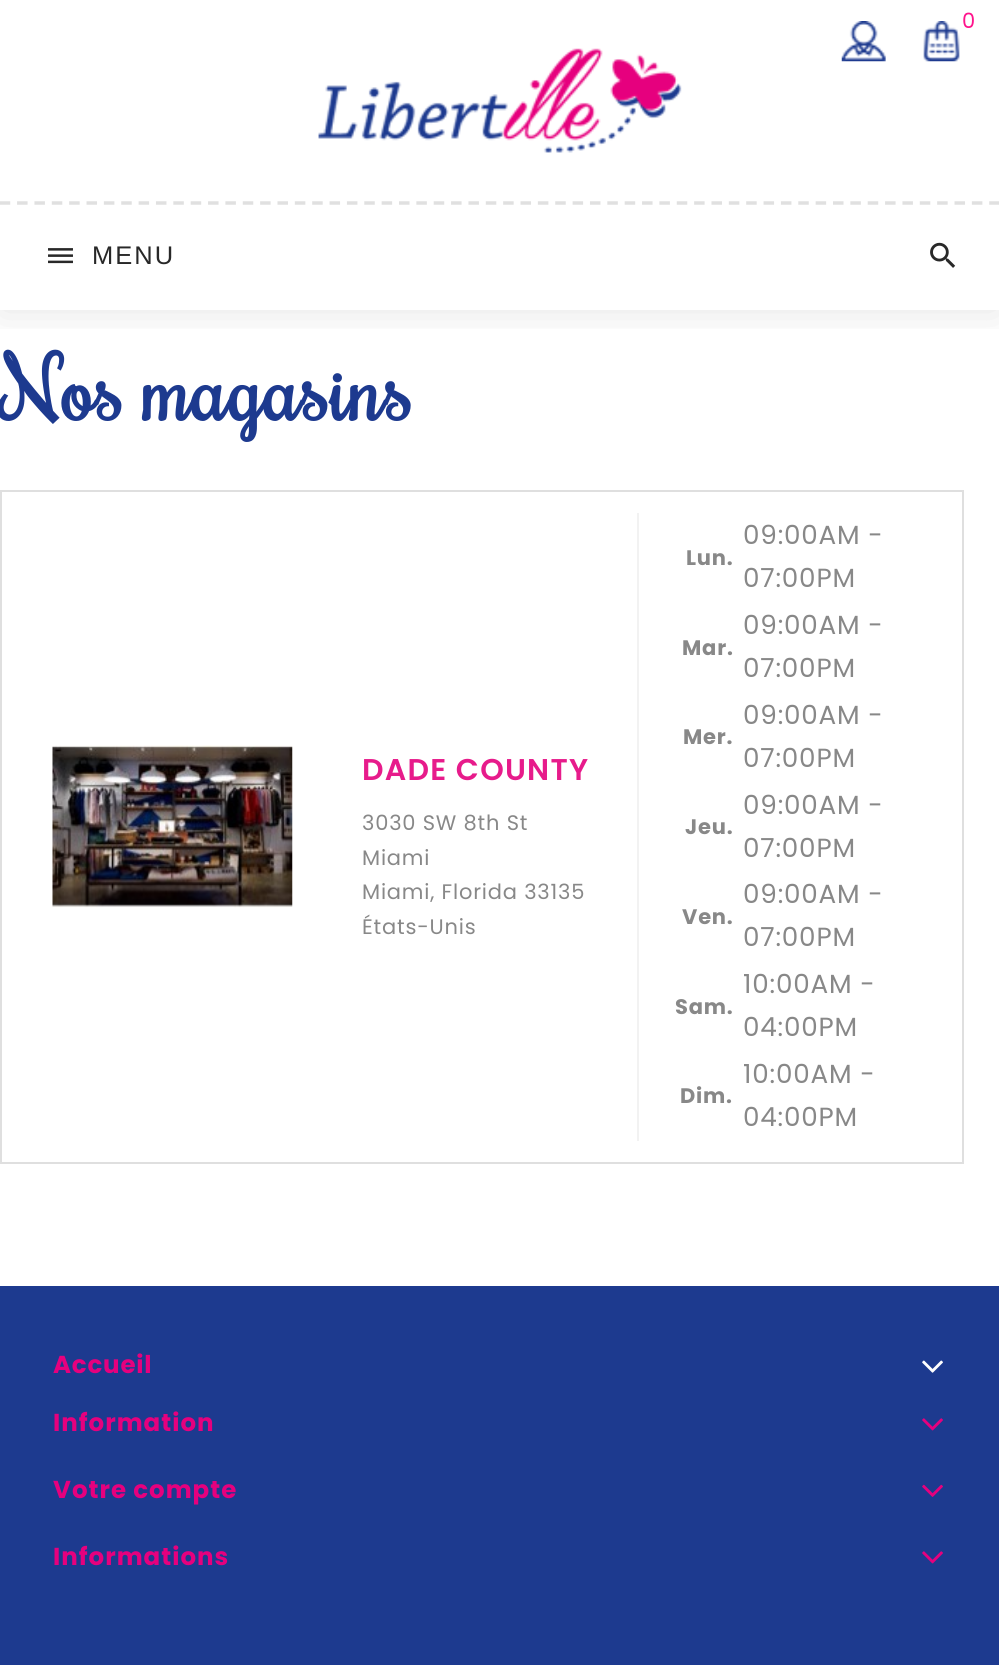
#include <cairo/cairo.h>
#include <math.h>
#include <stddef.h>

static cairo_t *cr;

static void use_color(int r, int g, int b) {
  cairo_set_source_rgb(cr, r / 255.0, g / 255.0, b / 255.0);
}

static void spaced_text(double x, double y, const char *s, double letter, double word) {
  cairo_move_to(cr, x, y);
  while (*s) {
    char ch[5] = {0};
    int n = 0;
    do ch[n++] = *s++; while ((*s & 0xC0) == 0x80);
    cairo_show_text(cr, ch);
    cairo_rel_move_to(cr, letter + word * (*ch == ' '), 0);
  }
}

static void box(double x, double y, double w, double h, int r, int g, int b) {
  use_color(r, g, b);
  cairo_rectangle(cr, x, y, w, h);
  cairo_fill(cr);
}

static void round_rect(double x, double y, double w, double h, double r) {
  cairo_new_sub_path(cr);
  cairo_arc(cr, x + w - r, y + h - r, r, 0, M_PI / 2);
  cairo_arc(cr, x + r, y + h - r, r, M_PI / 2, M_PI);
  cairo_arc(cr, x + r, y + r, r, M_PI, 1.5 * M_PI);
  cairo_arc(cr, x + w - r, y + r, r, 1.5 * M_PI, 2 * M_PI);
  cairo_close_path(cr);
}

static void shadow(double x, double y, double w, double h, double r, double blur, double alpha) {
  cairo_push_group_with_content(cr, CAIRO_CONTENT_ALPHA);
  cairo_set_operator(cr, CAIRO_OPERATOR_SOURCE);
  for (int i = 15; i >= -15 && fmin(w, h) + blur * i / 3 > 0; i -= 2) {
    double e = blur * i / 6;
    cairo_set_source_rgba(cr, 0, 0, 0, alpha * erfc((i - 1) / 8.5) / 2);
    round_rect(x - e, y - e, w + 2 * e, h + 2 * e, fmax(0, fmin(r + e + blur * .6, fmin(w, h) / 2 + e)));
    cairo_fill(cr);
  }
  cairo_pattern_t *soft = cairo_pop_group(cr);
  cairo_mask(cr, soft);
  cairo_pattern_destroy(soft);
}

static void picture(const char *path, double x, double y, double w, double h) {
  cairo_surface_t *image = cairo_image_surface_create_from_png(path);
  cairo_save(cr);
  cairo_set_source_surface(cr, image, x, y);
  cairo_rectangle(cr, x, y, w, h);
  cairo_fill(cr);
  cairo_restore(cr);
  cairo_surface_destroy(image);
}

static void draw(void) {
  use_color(255, 255, 255);
  cairo_paint(cr);
  cairo_save(cr);
  cairo_rectangle(cr, 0, 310, 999, 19);
  cairo_clip(cr);
  use_color(0, 0, 0);
  shadow(0, 0, 999, 310, 0, 21, 0.11);
  cairo_restore(cr);
  picture("img_01.png", 841, 21, 45, 41);
  picture("img_02.png", 923, 21, 37, 41);
  cairo_new_path(cr);
  cairo_move_to(cr, -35, 203);
  cairo_line_to(cr, 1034, 203);
  use_color(224, 224, 224);
  cairo_set_line_width(cr, 3.5);
  cairo_set_dash(cr, (double[]){10.5, 6.86}, 2, 0);
  cairo_stroke(cr);
  picture("img_03.png", 318, 48, 364, 105);
  picture("img_04.png", 48, 248, 25, 16);
  picture("img_05.png", 930, 242, 26, 26);
  cairo_rectangle(cr, 1, 491, 962, 672);
  use_color(223, 223, 223);
  cairo_set_line_width(cr, 2);
  cairo_set_dash(cr, NULL, 0, 0);
  cairo_stroke(cr);
  picture("img_06.png", 52, 745, 241, 163);
  box(637, 513, 2, 628, 242, 242, 242);
  box(0, 1286, 999, 379, 29, 58, 143);
  picture("img_07.png", 922, 1360, 21, 13);
  picture("img_08.png", 922, 1418, 21, 13);
  picture("img_09.png", 922, 1484, 21, 13);
  picture("img_08.png", 922, 1551, 21, 13);
  cairo_select_font_face(cr, "Poppins", CAIRO_FONT_SLANT_NORMAL, CAIRO_FONT_WEIGHT_NORMAL);
  cairo_set_font_size(cr, 21);
  use_color(255, 19, 140);
  spaced_text(962, 28, "0", 0.8, 0);
  cairo_select_font_face(cr, "Liberation Sans", CAIRO_FONT_SLANT_NORMAL, CAIRO_FONT_WEIGHT_NORMAL);
  cairo_set_font_size(cr, 25.5);
  use_color(40, 40, 40);
  spaced_text(92, 264, "MENU", 2, 0);
  cairo_select_font_face(cr, "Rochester", CAIRO_FONT_SLANT_NORMAL, CAIRO_FONT_WEIGHT_BOLD);
  cairo_set_font_size(cr, 84);
  use_color(29, 58, 143);
  spaced_text(0, 421, "Nos magasins", 0.8, 0);
  cairo_select_font_face(cr, "Poppins SemiBold", CAIRO_FONT_SLANT_NORMAL, CAIRO_FONT_WEIGHT_NORMAL);
  cairo_set_font_size(cr, 30);
  use_color(231, 27, 139);
  spaced_text(362, 780, "DADE COUNTY", 1.25, 0);
  cairo_select_font_face(cr, "Poppins", CAIRO_FONT_SLANT_NORMAL, CAIRO_FONT_WEIGHT_NORMAL);
  cairo_set_font_size(cr, 21);
  use_color(136, 136, 136);
  spaced_text(362, 830, "3030 SW 8th St", 0.8, 0);
  spaced_text(362, 865, "Miami", 0.8, 0);
  spaced_text(362, 899, "Miami, Florida 33135", 0.8, 0);
  spaced_text(362, 934, "États-Unis", 0.8, 0);
  cairo_select_font_face(cr, "Poppins", CAIRO_FONT_SLANT_NORMAL, CAIRO_FONT_WEIGHT_BOLD);
  spaced_text(686, 565, "Lun.", 0.8, 0);
  cairo_select_font_face(cr, "Poppins", CAIRO_FONT_SLANT_NORMAL, CAIRO_FONT_WEIGHT_NORMAL);
  cairo_set_font_size(cr, 26.25);
  spaced_text(743, 544, "09:00AM -", 0.8, 0);
  spaced_text(743, 587, "07:00PM", 0.8, 0);
  cairo_select_font_face(cr, "Poppins", CAIRO_FONT_SLANT_NORMAL, CAIRO_FONT_WEIGHT_BOLD);
  cairo_set_font_size(cr, 21);
  spaced_text(682, 655, "Mar.", 0.8, 0);
  cairo_select_font_face(cr, "Poppins", CAIRO_FONT_SLANT_NORMAL, CAIRO_FONT_WEIGHT_NORMAL);
  cairo_set_font_size(cr, 26.25);
  spaced_text(743, 634, "09:00AM -", 0.8, 0);
  spaced_text(743, 677, "07:00PM", 0.8, 0);
  cairo_select_font_face(cr, "Poppins", CAIRO_FONT_SLANT_NORMAL, CAIRO_FONT_WEIGHT_BOLD);
  cairo_set_font_size(cr, 21);
  spaced_text(683, 744, "Mer.", 0.8, 0);
  cairo_select_font_face(cr, "Poppins", CAIRO_FONT_SLANT_NORMAL, CAIRO_FONT_WEIGHT_NORMAL);
  cairo_set_font_size(cr, 26.25);
  spaced_text(743, 724, "09:00AM -", 0.8, 0);
  spaced_text(743, 767, "07:00PM", 0.8, 0);
  cairo_select_font_face(cr, "Poppins", CAIRO_FONT_SLANT_NORMAL, CAIRO_FONT_WEIGHT_BOLD);
  cairo_set_font_size(cr, 21);
  spaced_text(685, 834, "Jeu.", 0.8, 0);
  cairo_select_font_face(cr, "Poppins", CAIRO_FONT_SLANT_NORMAL, CAIRO_FONT_WEIGHT_NORMAL);
  cairo_set_font_size(cr, 26.25);
  spaced_text(743, 814, "09:00AM -", 0.8, 0);
  spaced_text(743, 857, "07:00PM", 0.8, 0);
  cairo_select_font_face(cr, "Poppins", CAIRO_FONT_SLANT_NORMAL, CAIRO_FONT_WEIGHT_BOLD);
  cairo_set_font_size(cr, 21);
  spaced_text(682, 924, "Ven.", 0.8, 0);
  cairo_select_font_face(cr, "Poppins", CAIRO_FONT_SLANT_NORMAL, CAIRO_FONT_WEIGHT_NORMAL);
  cairo_set_font_size(cr, 26.25);
  spaced_text(743, 903, "09:00AM -", 0.8, 0);
  spaced_text(743, 946, "07:00PM", 0.8, 0);
  cairo_select_font_face(cr, "Poppins", CAIRO_FONT_SLANT_NORMAL, CAIRO_FONT_WEIGHT_BOLD);
  cairo_set_font_size(cr, 21);
  spaced_text(675, 1014, "Sam.", 0.8, 0);
  cairo_select_font_face(cr, "Poppins", CAIRO_FONT_SLANT_NORMAL, CAIRO_FONT_WEIGHT_NORMAL);
  cairo_set_font_size(cr, 26.25);
  spaced_text(743, 993, "10:00AM -", 0.8, 0);
  spaced_text(743, 1036, "04:00PM", 0.8, 0);
  cairo_select_font_face(cr, "Poppins", CAIRO_FONT_SLANT_NORMAL, CAIRO_FONT_WEIGHT_BOLD);
  cairo_set_font_size(cr, 21);
  spaced_text(680, 1103, "Dim.", 0.8, 0);
  cairo_select_font_face(cr, "Poppins", CAIRO_FONT_SLANT_NORMAL, CAIRO_FONT_WEIGHT_NORMAL);
  cairo_set_font_size(cr, 26.25);
  spaced_text(743, 1083, "10:00AM -", 0.8, 0);
  spaced_text(743, 1126, "04:00PM", 0.8, 0);
  cairo_select_font_face(cr, "Poppins", CAIRO_FONT_SLANT_NORMAL, CAIRO_FONT_WEIGHT_BOLD);
  cairo_set_font_size(cr, 24.5);
  use_color(230, 0, 126);
  spaced_text(53, 1373, "Accueil", 0.8, 0);
  spaced_text(53, 1431, "Information", 1, 0);
  spaced_text(53, 1498, "Votre compte", 1, 0);
  spaced_text(53, 1565, "Informations", 1, 0);
}

int main(void) {
  cairo_surface_t *surface = cairo_image_surface_create(CAIRO_FORMAT_RGB24, 999, 1665);
  cr = cairo_create(surface);
  cairo_font_options_t *options = cairo_font_options_create();
  cairo_font_options_set_hint_metrics(options, CAIRO_HINT_METRICS_OFF);
  cairo_font_options_set_hint_style(options, CAIRO_HINT_STYLE_NONE);
  cairo_set_font_options(cr, options);
  cairo_set_miter_limit(cr, 4);
  draw();
  cairo_surface_write_to_png(surface, "out.png");
  cairo_font_options_destroy(options);
  cairo_destroy(cr);
  cairo_surface_destroy(surface);
  return 0;
}
